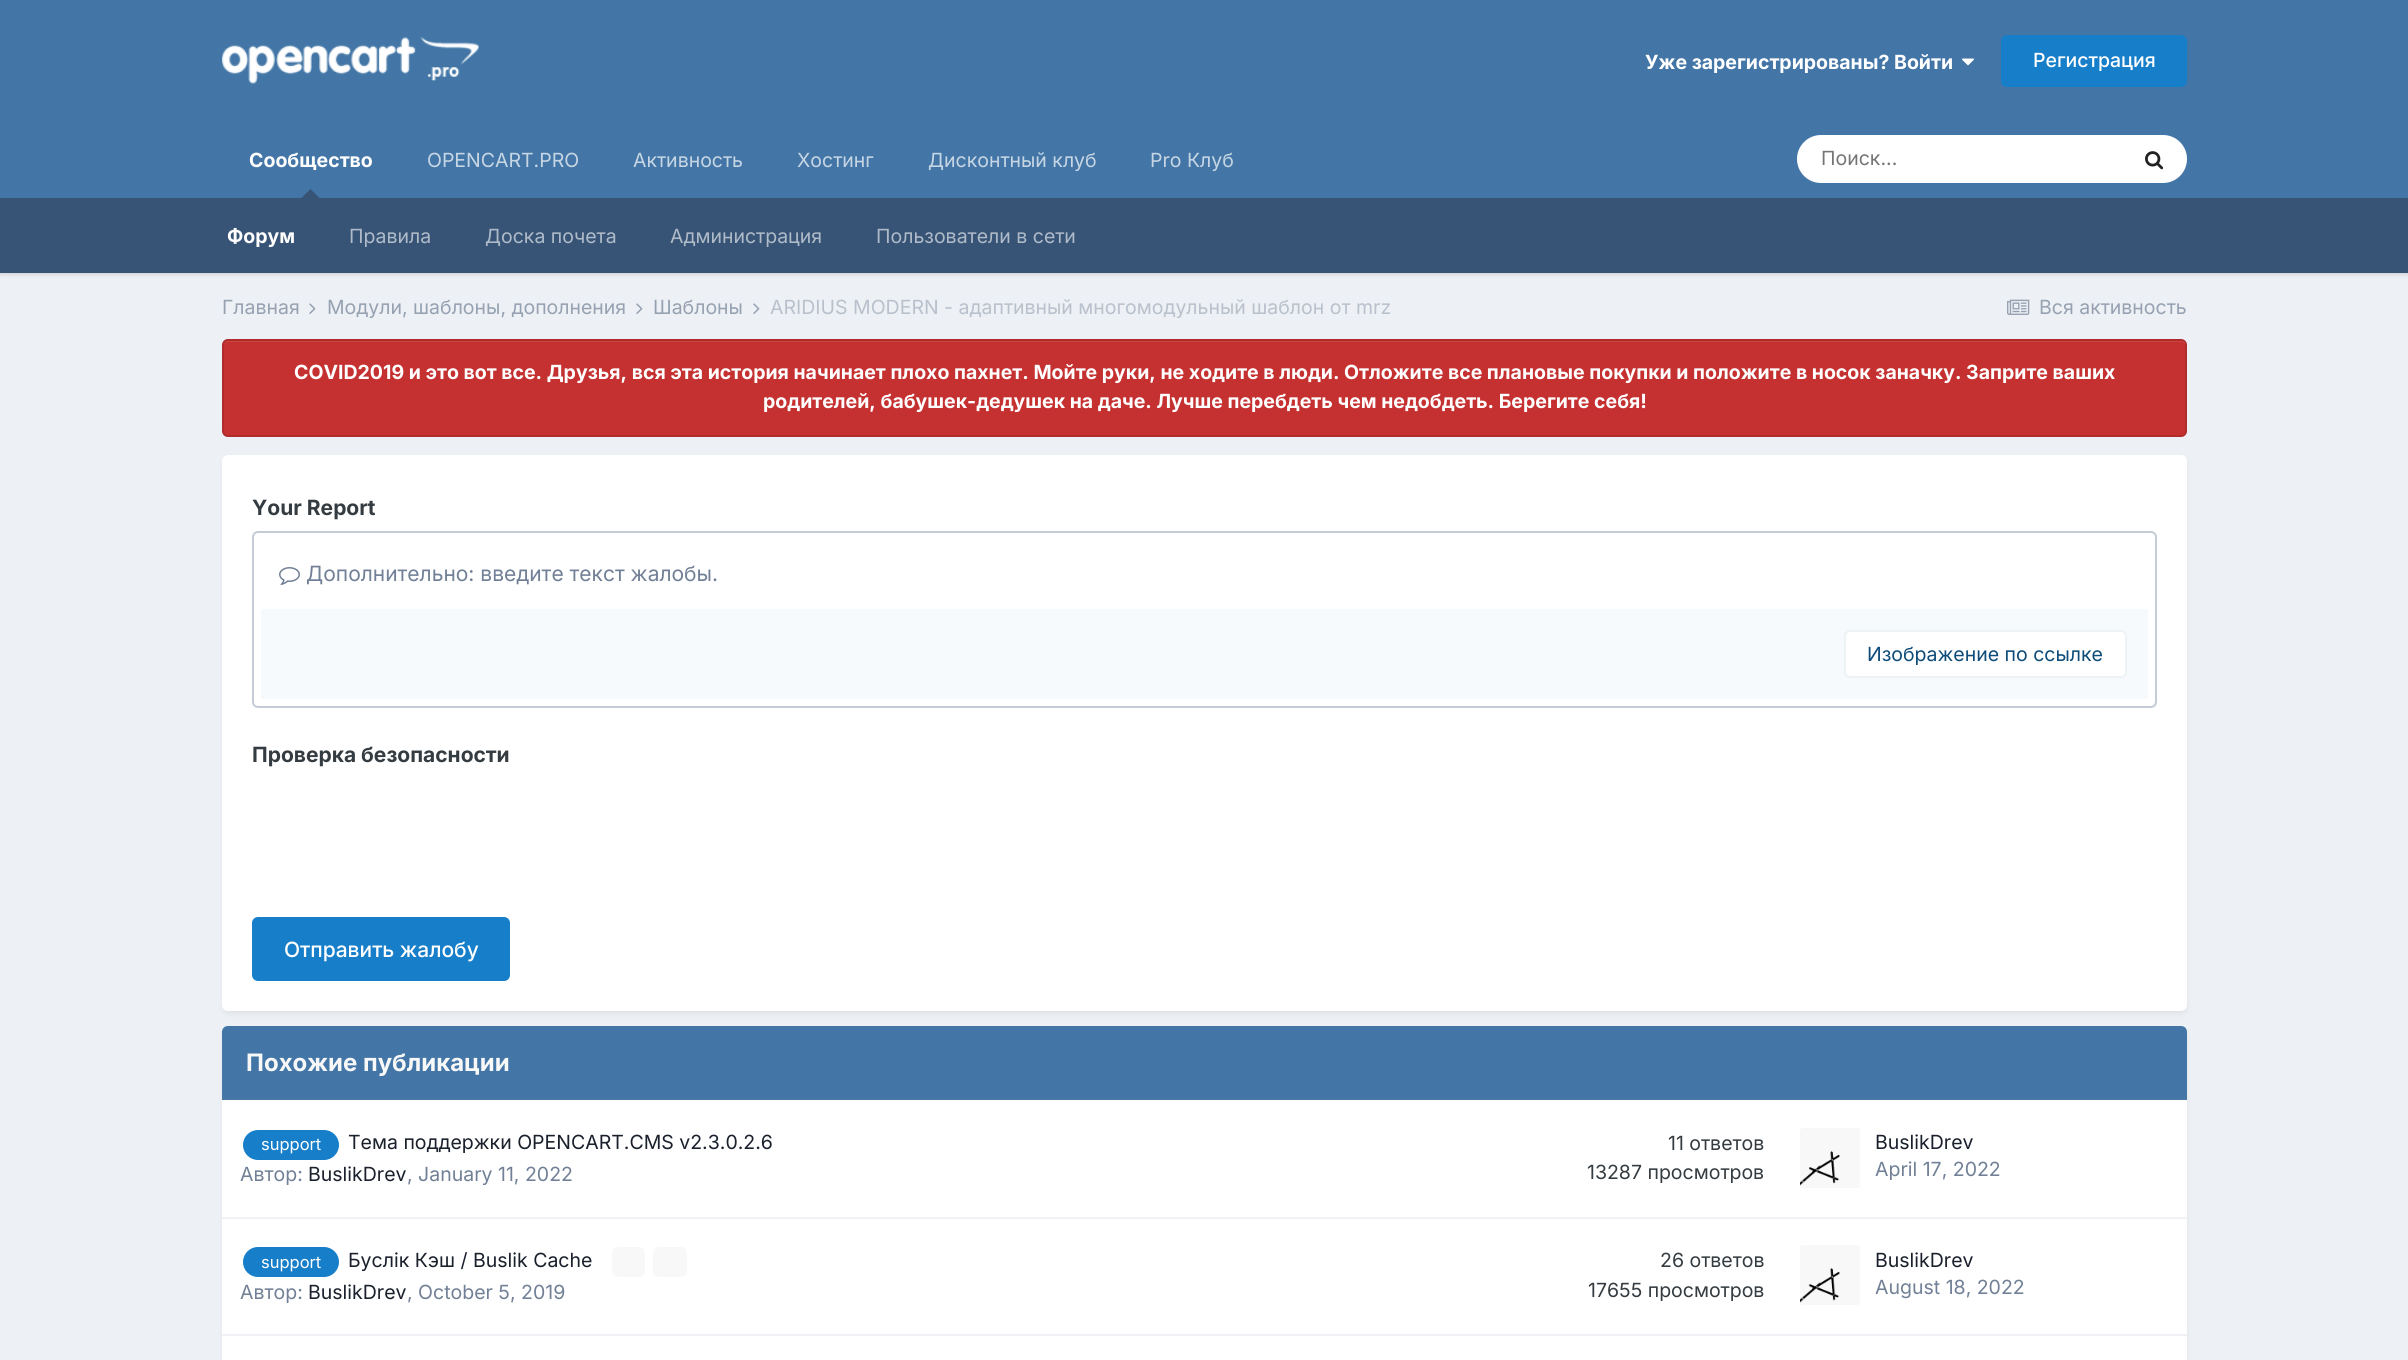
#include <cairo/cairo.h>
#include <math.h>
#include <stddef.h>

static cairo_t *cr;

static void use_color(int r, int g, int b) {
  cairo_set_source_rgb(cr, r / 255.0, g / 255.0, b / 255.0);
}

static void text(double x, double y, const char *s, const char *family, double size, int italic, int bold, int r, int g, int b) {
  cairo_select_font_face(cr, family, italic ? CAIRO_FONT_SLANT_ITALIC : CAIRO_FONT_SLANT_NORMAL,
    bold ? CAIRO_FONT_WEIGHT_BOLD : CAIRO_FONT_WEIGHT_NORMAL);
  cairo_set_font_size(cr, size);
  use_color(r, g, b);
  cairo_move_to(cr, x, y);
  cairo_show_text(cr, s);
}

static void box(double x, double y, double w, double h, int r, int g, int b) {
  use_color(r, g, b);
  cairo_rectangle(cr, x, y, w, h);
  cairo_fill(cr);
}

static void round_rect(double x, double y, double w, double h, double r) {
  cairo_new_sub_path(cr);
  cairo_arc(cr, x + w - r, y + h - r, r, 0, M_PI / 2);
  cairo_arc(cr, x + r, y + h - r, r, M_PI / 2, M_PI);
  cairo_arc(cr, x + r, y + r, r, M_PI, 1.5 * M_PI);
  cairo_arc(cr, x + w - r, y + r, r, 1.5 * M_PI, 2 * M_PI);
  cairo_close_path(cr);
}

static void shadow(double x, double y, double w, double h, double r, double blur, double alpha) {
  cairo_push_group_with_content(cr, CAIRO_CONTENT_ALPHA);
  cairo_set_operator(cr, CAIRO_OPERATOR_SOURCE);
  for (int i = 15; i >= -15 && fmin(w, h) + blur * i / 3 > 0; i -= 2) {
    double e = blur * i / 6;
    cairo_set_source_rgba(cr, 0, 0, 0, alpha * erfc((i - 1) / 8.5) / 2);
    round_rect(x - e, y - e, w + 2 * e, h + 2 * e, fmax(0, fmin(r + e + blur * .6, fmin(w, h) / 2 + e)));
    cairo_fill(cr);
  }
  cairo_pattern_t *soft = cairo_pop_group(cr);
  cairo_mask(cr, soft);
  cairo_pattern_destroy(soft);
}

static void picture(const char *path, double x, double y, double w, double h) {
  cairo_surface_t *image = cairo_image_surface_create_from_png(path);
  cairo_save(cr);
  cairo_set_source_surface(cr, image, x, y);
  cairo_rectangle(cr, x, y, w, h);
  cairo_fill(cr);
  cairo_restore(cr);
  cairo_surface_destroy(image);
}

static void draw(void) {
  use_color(237, 240, 244);
  cairo_paint(cr);
  box(0, 0, 2408, 198, 67, 118, 166);
  picture("img_01.png", 222, 36, 257, 48);
  picture("img_02.png", 1962, 58, 12, 8);
  use_color(23, 126, 201);
  round_rect(2001, 35, 186, 52, 6);
  cairo_fill(cr);
  use_color(0, 0, 0);
  shadow(0, 200, 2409, 75, 0, 1.5, 0.1);
  use_color(55, 84, 118);
  cairo_new_path(cr);
  cairo_move_to(cr, 319.5, 198);
  cairo_line_to(cr, 301.5, 198);
  cairo_line_to(cr, 310.5, 189);
  cairo_close_path(cr);
  cairo_fill(cr);
  use_color(255, 255, 255);
  round_rect(1797, 135, 390, 48, 24);
  cairo_fill(cr);
  picture("img_03.png", 2145, 151, 19, 19);
  box(0, 198, 2408, 75, 55, 84, 118);
  picture("img_04.png", 309, 303, 7, 11);
  picture("img_04.png", 636, 303, 7, 11);
  picture("img_04.png", 753, 303, 7, 11);
  picture("img_05.png", 2007, 299, 23, 16);
  use_color(197, 48, 48);
  round_rect(222, 339, 1965, 98, 6);
  cairo_fill(cr);
  use_color(203, 69, 69);
  cairo_new_path(cr);
  cairo_move_to(cr, 228, 342);
  cairo_line_to(cr, 2181, 342);
  cairo_curve_to(cr, 2183, 342, 2186, 344, 2186, 346);
  cairo_curve_to(cr, 2186, 343, 2184, 341, 2181, 341);
  cairo_line_to(cr, 229, 341);
  cairo_curve_to(cr, 226, 341, 224, 343, 224, 346);
  cairo_curve_to(cr, 224, 344, 226, 342, 228, 342);
  cairo_close_path(cr);
  cairo_fill(cr);
  round_rect(223, 340, 1963, 96, 5);
  cairo_set_source_rgba(cr, 0, 0, 0, 0.1);
  cairo_stroke(cr);
  use_color(45, 55, 72);
  shadow(224, 459, 1962, 554, 5, 3, 0.1);
  use_color(255, 255, 255);
  round_rect(222, 455, 1965, 556, 6);
  cairo_fill(cr);
  round_rect(253, 532, 1903, 175, 5);
  use_color(198, 204, 213);
  cairo_stroke(cr);
  picture("img_06.png", 279, 567, 21, 18);
  box(261, 609, 1887, 90, 247, 250, 252);
  use_color(255, 255, 255);
  round_rect(1845, 631, 281, 46, 5);
  cairo_fill_preserve(cr);
  use_color(237, 242, 245);
  cairo_stroke(cr);
  use_color(23, 126, 201);
  round_rect(252, 917, 258, 64, 6);
  cairo_fill(cr);
  use_color(45, 55, 72);
  shadow(224, 1031, 1962, 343, 5, 3, 0.1);
  use_color(255, 255, 255);
  round_rect(222, 1026, 1965, 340, 6);
  cairo_fill(cr);
  use_color(67, 118, 166);
  cairo_new_path(cr);
  cairo_move_to(cr, 228, 1026);
  cairo_line_to(cr, 2181, 1026);
  cairo_curve_to(cr, 2184.5, 1026, 2187, 1028.5, 2187, 1032);
  cairo_line_to(cr, 2187, 1100);
  cairo_line_to(cr, 222, 1100);
  cairo_line_to(cr, 222, 1032);
  cairo_curve_to(cr, 222, 1028.5, 224.5, 1026, 228, 1026);
  cairo_close_path(cr);
  cairo_fill(cr);
  box(222, 1098, 1965, 2, 74, 120, 164);
  box(222, 1217, 1965, 2, 241, 242, 245);
  use_color(23, 126, 201);
  round_rect(243, 1130, 96, 30, 15);
  cairo_fill(cr);
  picture("img_07.png", 1800, 1128, 60, 60);
  box(222, 1334, 1965, 2, 241, 242, 245);
  use_color(23, 126, 201);
  round_rect(243, 1247, 96, 30, 15);
  cairo_fill(cr);
  use_color(248, 248, 249);
  round_rect(612, 1247, 33, 30, 6);
  cairo_fill(cr);
  round_rect(653, 1247, 34, 30, 6);
  cairo_fill(cr);
  picture("img_08.png", 1800, 1245, 60, 60);
  text(1645, 69, "Уже зарегистрированы? Войти", "Inter", 19.5, 0, 1, 255, 255, 255);
  text(2033, 67, "Регистрация", "Inter Medium", 19.5, 0, 0, 255, 255, 255);
  text(249, 167, "Сообщество", "Inter", 19.5, 0, 1, 255, 255, 255);
  text(227, 243, "Форум", "Inter", 19.5, 0, 1, 255, 255, 255);
  text(349, 243, "Правила", "Inter", 19.5, 0, 0, 175, 187, 200);
  text(485, 243, "Доска почета", "Inter", 19.5, 0, 0, 175, 187, 200);
  text(670, 243, "Администрация", "Inter", 19.5, 0, 0, 175, 187, 200);
  text(876, 243, "Пользователи в сети", "Inter", 19.5, 0, 0, 175, 187, 200);
  text(427, 167, "OPENCART.PRO", "Inter", 19.5, 0, 0, 199, 214, 228);
  text(633, 167, "Активность", "Inter", 19.5, 0, 0, 199, 214, 228);
  text(797, 167, "Хостинг", "Inter", 19.5, 0, 0, 199, 214, 228);
  text(928, 167, "Дисконтный клуб", "Inter", 19.5, 0, 0, 199, 214, 228);
  text(1150, 167, "Pro Клуб", "Inter", 19.5, 0, 0, 199, 214, 228);
  text(1821, 165, "Поиск...", "Inter", 19.5, 0, 0, 117, 117, 117);
  text(222, 314, "Главная", "Inter", 19.5, 0, 0, 150, 162, 178);
  text(327, 314, "Модули, шаблоны, дополнения", "Inter", 19.5, 0, 0, 150, 162, 178);
  text(653, 314, "Шаблоны", "Inter", 19.5, 0, 0, 150, 162, 178);
  text(770, 314, "ARIDIUS MODERN - адаптивный многомодульный шаблон от mrz", "Inter", 19.5, 0, 0, 185, 193, 205);
  text(2039, 314, "Вся активность", "Inter", 19.5, 0, 0, 150, 162, 178);
  text(294, 379, "COVID2019 и это вот все. Друзья, вся эта история начинает плохо пахнет. Мойте руки, не ходите в люди. Отложите все плановые покупки и положите в носок заначку. Заприте ваших", "Inter", 19.5, 0, 1, 255, 255, 255);
  text(763, 408, "родителей, бабушек-дедушек на даче. Лучше перебдеть чем недобдеть. Берегите себя!", "Inter", 19.5, 0, 1, 255, 255, 255);
  text(252, 515, "Your Report", "Inter", 21, 0, 1, 53, 60, 65);
  text(306, 581, "Дополнительно: введите текст жалобы.", "Inter", 21, 0, 0, 113, 128, 150);
  text(1867, 661, "Изображение по ссылке", "Inter", 19.5, 0, 0, 14, 76, 121);
  text(252, 762, "Проверка безопасности", "Inter", 21, 0, 1, 53, 60, 65);
  text(284, 957, "Отправить жалобу", "Inter Medium", 21, 0, 0, 255, 255, 255);
  text(246, 1071, "Похожие публикации", "Inter", 24, 0, 1, 248, 248, 248);
  text(261, 1150, "support", "Inter", 16.5, 0, 0, 255, 255, 255);
  text(348, 1149, "Тема поддержки OPENCART.CMS v2.3.0.2.6", "Inter", 19.5, 0, 0, 26, 32, 44);
  text(240, 1181, "Автор:", "Inter", 19.5, 0, 0, 113, 128, 150);
  text(308, 1181, "BuslikDrev", "Inter", 19.5, 0, 0, 26, 32, 44);
  text(407, 1181, ", January 11, 2022", "Inter", 19.5, 0, 0, 113, 128, 150);
  text(1668, 1150, "11 ответов", "Inter", 19.5, 0, 0, 53, 60, 65);
  text(1587, 1179, "13287 просмотров", "Inter", 19.5, 0, 0, 53, 60, 65);
  text(1875, 1149, "BuslikDrev", "Inter", 19.5, 0, 0, 26, 32, 44);
  text(1875, 1176, "April 17, 2022", "Inter", 19.5, 0, 0, 113, 128, 150);
  text(261, 1268, "support", "Inter", 16.5, 0, 0, 255, 255, 255);
  text(348, 1267, "Буслік Кэш / Buslik Cache", "Inter", 19.5, 0, 0, 26, 32, 44);
  text(240, 1299, "Автор:", "Inter", 19.5, 0, 0, 113, 128, 150);
  text(308, 1299, "BuslikDrev", "Inter", 19.5, 0, 0, 26, 32, 44);
  text(407, 1299, ", October 5, 2019", "Inter", 19.5, 0, 0, 113, 128, 150);
  text(1660, 1267, "26 ответов", "Inter", 19.5, 0, 0, 53, 60, 65);
  text(1588, 1297, "17655 просмотров", "Inter", 19.5, 0, 0, 53, 60, 65);
  text(1875, 1267, "BuslikDrev", "Inter", 19.5, 0, 0, 26, 32, 44);
  text(1875, 1294, "August 18, 2022", "Inter", 19.5, 0, 0, 113, 128, 150);
}

int main(void) {
  cairo_surface_t *surface = cairo_image_surface_create(CAIRO_FORMAT_RGB24, 2408, 1360);
  cr = cairo_create(surface);
  cairo_font_options_t *options = cairo_font_options_create();
  cairo_font_options_set_hint_metrics(options, CAIRO_HINT_METRICS_OFF);
  cairo_font_options_set_hint_style(options, CAIRO_HINT_STYLE_NONE);
  cairo_set_font_options(cr, options);
  cairo_set_miter_limit(cr, 4);
  draw();
  cairo_surface_write_to_png(surface, "out.png");
  cairo_font_options_destroy(options);
  cairo_destroy(cr);
  cairo_surface_destroy(surface);
  return 0;
}
